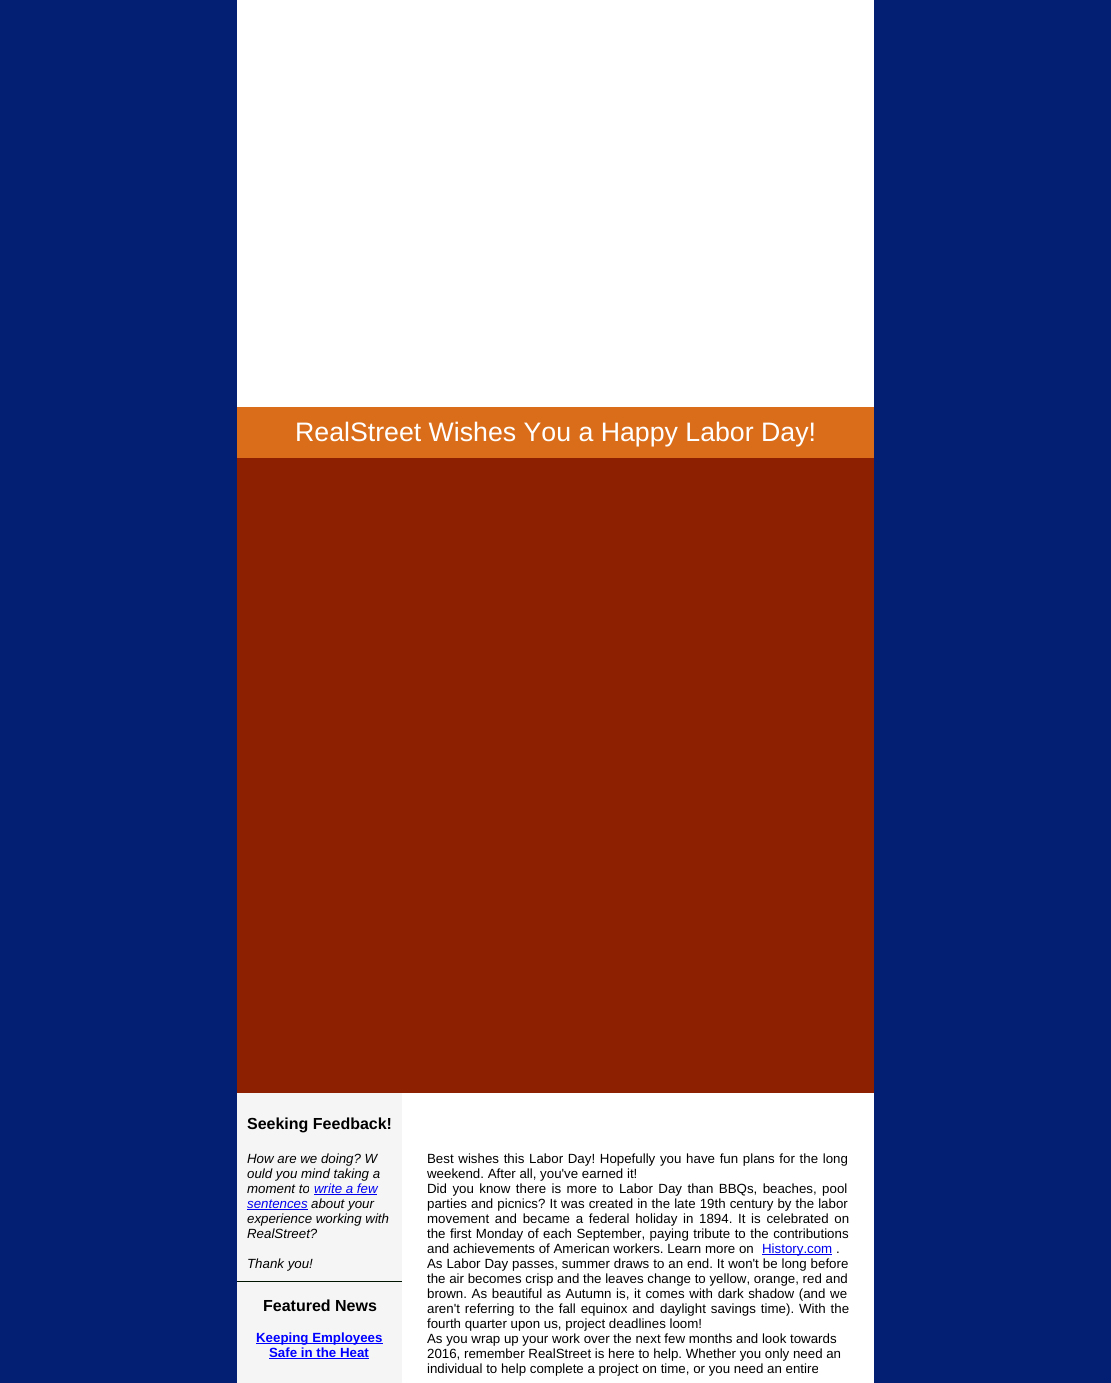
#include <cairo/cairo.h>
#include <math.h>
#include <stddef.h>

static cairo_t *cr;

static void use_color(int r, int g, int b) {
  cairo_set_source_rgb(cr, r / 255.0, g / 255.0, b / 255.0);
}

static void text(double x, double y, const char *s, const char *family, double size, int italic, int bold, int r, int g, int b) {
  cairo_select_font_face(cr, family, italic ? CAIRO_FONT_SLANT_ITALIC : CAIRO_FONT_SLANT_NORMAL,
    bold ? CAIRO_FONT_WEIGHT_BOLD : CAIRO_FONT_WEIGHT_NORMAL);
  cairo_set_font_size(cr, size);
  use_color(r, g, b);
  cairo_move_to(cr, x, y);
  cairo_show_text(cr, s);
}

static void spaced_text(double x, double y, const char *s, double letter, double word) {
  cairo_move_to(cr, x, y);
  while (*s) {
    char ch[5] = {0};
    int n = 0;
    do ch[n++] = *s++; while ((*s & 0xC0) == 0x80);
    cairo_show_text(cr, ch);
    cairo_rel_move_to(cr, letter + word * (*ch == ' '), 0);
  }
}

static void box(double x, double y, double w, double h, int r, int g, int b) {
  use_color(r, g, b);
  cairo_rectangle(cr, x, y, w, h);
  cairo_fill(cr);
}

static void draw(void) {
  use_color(3, 31, 115);
  cairo_paint(cr);
  box(237, 0, 637, 407, 255, 255, 255);
  box(237, 407, 637, 51, 217, 109, 26);
  box(237, 458, 637, 635, 140, 32, 0);
  box(237, 1093, 165, 290, 245, 245, 245);
  box(314, 1194, 63, 1, 0, 0, 238);
  box(247, 1209, 61, 1, 0, 0, 238);
  box(237, 1281, 165, 1, 0, 21, 0);
  box(256, 1343, 127, 1, 0, 0, 255);
  box(269, 1358, 100, 1, 0, 0, 255);
  box(402, 1093, 472, 290, 255, 255, 255);
  box(762, 1254, 70, 1, 0, 0, 238);
  text(295, 441, "RealStreet Wishes You a Happy Labor Day!", "Liberation Sans", 26.7, 0, 0, 255, 255, 255);
  text(247, 1129, "Seeking Feedback!", "Liberation Sans", 16, 0, 1, 0, 0, 0);
  text(247, 1163, "How are we doing? W", "Liberation Sans", 13.3, 1, 0, 0, 0, 0);
  text(247, 1178, "ould you mind taking a", "Liberation Sans", 13.3, 1, 0, 0, 0, 0);
  text(247, 1193, "moment to", "Liberation Sans", 13.3, 1, 0, 0, 0, 0);
  text(314, 1193, "write a few", "Liberation Sans", 13.3, 1, 0, 0, 0, 238);
  text(247, 1208, "sentences", "Liberation Sans", 13.3, 1, 0, 0, 0, 238);
  text(311, 1208, "about your", "Liberation Sans", 13.3, 1, 0, 0, 0, 0);
  text(247, 1223, "experience working with", "Liberation Sans", 13.3, 1, 0, 0, 0, 0);
  text(247, 1238, "RealStreet?", "Liberation Sans", 13.3, 1, 0, 0, 0, 0);
  text(247, 1268, "Thank you!", "Liberation Sans", 13.3, 1, 0, 0, 0, 0);
  text(263, 1311, "Featured News", "Liberation Sans", 16, 0, 1, 0, 0, 0);
  text(256, 1342, "Keeping Employees", "Liberation Sans", 13.3, 0, 1, 0, 0, 255);
  text(269, 1357, "Safe in the Heat", "Liberation Sans", 13.3, 0, 1, 0, 0, 255);
  cairo_select_font_face(cr, "Liberation Sans", CAIRO_FONT_SLANT_NORMAL, CAIRO_FONT_WEIGHT_NORMAL);
  use_color(0, 0, 0);
  spaced_text(427, 1163, "Best wishes this Labor Day! Hopefully you have fun plans for the long", 0, 1);
  text(427, 1178, "weekend. After all, you've earned it!", "Liberation Sans", 13.3, 0, 0, 0, 0, 0);
  spaced_text(427, 1193, "Did you know there is more to Labor Day than BBQs, beaches, pool", 0, 1.75);
  spaced_text(427, 1208, "parties and picnics? It was created in the late 19th century by the labor", 0, 0.4);
  spaced_text(427, 1223, "movement and became a federal holiday in 1894. It is celebrated on", 0, 2);
  spaced_text(427, 1238, "the first Monday of each September, paying tribute to the contributions", 0, 0.75);
  text(427, 1253, "and achievements of American workers. Learn more on", "Liberation Sans", 13.3, 0, 0, 0, 0, 0);
  text(762, 1253, "History.com", "Liberation Sans", 13.3, 0, 0, 0, 0, 238);
  text(836, 1253, ".", "Liberation Sans", 13.3, 0, 0, 0, 0, 0);
  spaced_text(427, 1268, "As Labor Day passes, summer draws to an end. It won't be long before", 0, 0.25);
  text(427, 1283, "the air becomes crisp and the leaves change to yellow, orange, red and", "Liberation Sans", 13.3, 0, 0, 0, 0, 0);
  spaced_text(427, 1298, "brown. As beautiful as Autumn is, it comes with dark shadow (and we", 0, 1);
  spaced_text(427, 1313, "aren't referring to the fall equinox and", 0, 1.25);
  spaced_text(660, 1313, "daylight savings time). With the", 0, 1.25);
  text(427, 1328, "fourth quarter upon us, project deadlines loom!", "Liberation Sans", 13.3, 0, 0, 0, 0, 0);
  text(427, 1343, "As you wrap up your work over the next few months and look towards", "Liberation Sans", 13.3, 0, 0, 0, 0, 0);
  text(427, 1358, "2016, remember RealStreet is here to help. Whether you only need an", "Liberation Sans", 13.3, 0, 0, 0, 0, 0);
  text(427, 1373, "individual to help complete a project on time, or you need an entire", "Liberation Sans", 13.3, 0, 0, 0, 0, 0);
}

int main(void) {
  cairo_surface_t *surface = cairo_image_surface_create(CAIRO_FORMAT_RGB24, 1111, 1383);
  cr = cairo_create(surface);
  cairo_font_options_t *options = cairo_font_options_create();
  cairo_font_options_set_hint_metrics(options, CAIRO_HINT_METRICS_OFF);
  cairo_font_options_set_hint_style(options, CAIRO_HINT_STYLE_NONE);
  cairo_set_font_options(cr, options);
  cairo_set_miter_limit(cr, 4);
  draw();
  cairo_surface_write_to_png(surface, "out.png");
  cairo_font_options_destroy(options);
  cairo_destroy(cr);
  cairo_surface_destroy(surface);
  return 0;
}
